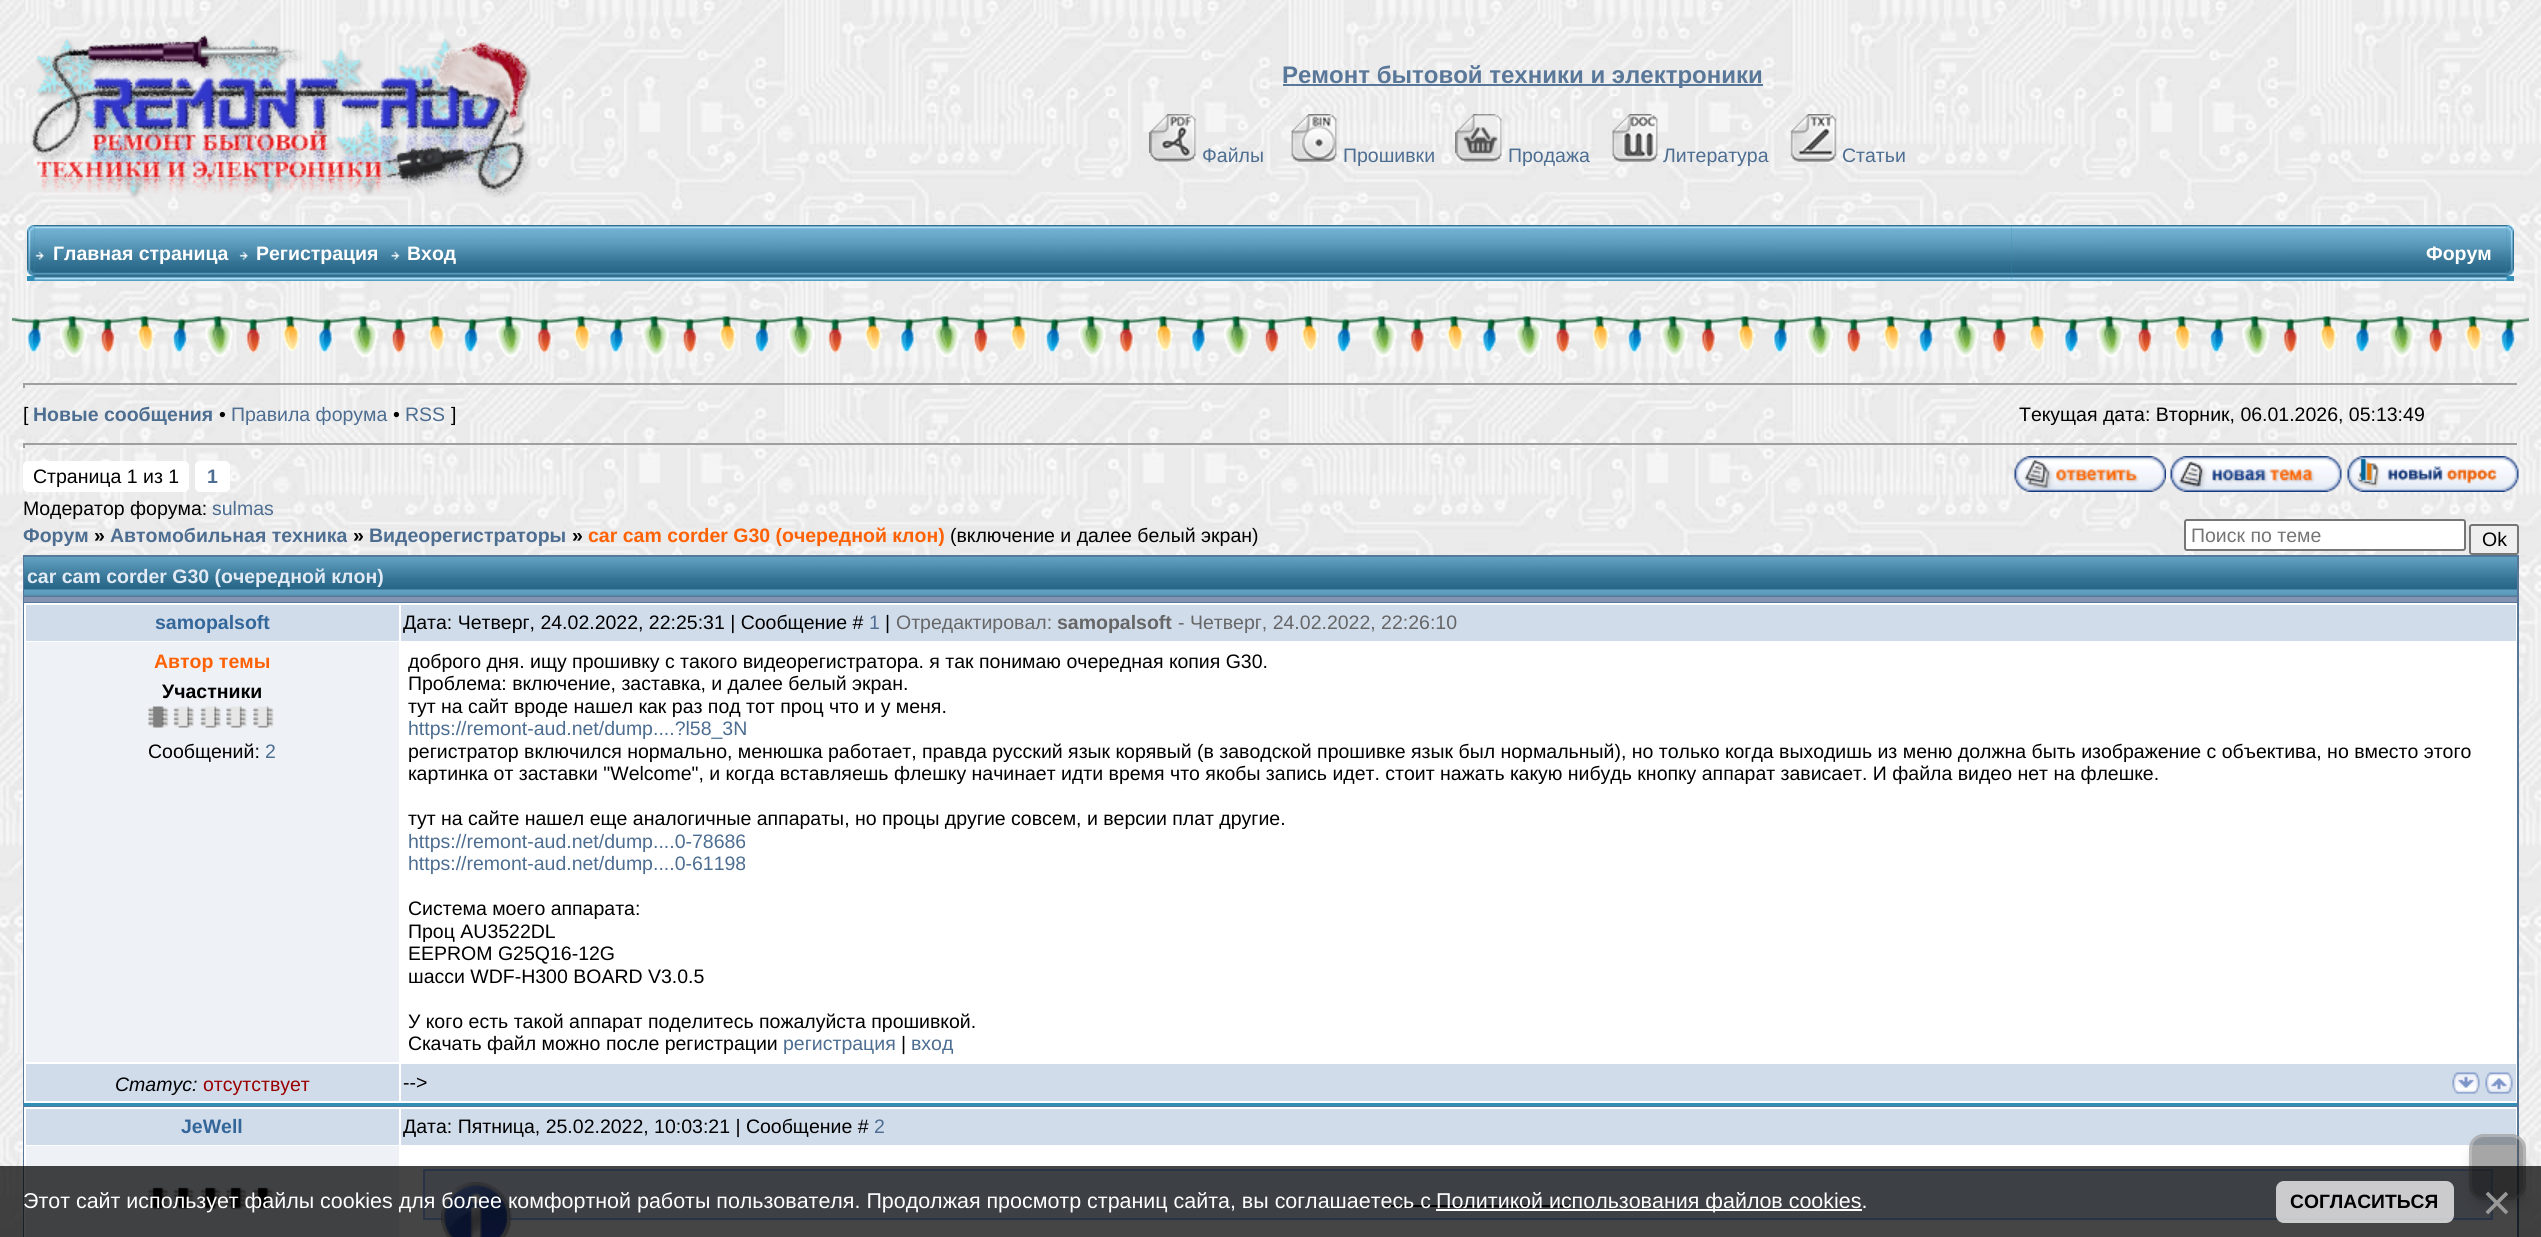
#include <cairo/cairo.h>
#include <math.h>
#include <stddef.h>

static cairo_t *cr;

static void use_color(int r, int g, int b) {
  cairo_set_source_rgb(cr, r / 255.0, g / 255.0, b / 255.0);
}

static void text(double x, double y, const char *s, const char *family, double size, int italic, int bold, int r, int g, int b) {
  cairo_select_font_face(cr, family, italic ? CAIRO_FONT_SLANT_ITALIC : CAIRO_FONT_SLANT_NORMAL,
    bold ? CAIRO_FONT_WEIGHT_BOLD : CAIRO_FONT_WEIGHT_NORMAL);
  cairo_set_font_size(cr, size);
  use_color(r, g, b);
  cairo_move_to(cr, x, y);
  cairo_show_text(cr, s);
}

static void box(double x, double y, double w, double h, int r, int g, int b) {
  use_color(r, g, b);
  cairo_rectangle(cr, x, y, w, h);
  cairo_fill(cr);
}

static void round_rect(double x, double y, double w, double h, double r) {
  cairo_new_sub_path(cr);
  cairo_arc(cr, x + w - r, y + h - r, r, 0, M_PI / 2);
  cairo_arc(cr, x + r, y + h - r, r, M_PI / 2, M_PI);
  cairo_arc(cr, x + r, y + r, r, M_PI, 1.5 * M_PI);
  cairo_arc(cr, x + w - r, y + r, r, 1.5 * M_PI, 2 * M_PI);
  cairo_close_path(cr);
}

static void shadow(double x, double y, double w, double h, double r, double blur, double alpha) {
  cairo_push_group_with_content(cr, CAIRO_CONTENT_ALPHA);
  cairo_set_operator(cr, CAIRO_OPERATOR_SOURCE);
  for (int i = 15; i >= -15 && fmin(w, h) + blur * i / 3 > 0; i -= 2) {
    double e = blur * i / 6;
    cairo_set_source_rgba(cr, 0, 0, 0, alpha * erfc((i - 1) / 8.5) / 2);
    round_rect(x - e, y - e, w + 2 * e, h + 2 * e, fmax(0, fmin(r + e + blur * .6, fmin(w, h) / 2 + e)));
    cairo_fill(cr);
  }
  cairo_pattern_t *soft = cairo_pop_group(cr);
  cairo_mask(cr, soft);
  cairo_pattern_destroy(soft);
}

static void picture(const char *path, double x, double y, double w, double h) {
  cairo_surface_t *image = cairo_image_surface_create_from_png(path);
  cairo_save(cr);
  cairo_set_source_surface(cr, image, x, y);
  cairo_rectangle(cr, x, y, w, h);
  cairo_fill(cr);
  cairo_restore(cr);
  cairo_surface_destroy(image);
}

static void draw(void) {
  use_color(255, 255, 255);
  cairo_paint(cr);
  picture("img_01.png", 0, 0, 2541, 1237);
  picture("img_02.png", 31, 34, 500, 164);
  box(1283, 84, 480, 2, 89, 119, 152);
  picture("img_03.png", 1149, 114, 47, 48);
  picture("img_04.png", 1291, 114, 46, 48);
  picture("img_05.png", 1455, 114, 47, 48);
  picture("img_06.png", 1612, 114, 46, 48);
  picture("img_07.png", 1790, 114, 47, 48);
  box(27, 225, 2480, 56, 49, 142, 183);
  picture("img_10.png", 34, 225, 1978, 56);
  picture("img_08.png", 27, 225, 8, 51);
  box(2507, 276, 7, 5, 49, 142, 183);
  picture("img_14.png", 2011, 225, 496, 56);
  picture("img_09.png", 2506, 225, 8, 51);
  picture("img_11.png", 35, 251, 9, 9);
  picture("img_12.png", 239, 251, 9, 9);
  picture("img_13.png", 391, 251, 9, 9);
  picture("img_15.png", 12, 316, 2517, 42);
  box(23, 383, 2496, 2, 159, 159, 159);
  box(2517, 383, 2, 5, 238, 238, 238);
  box(23, 386, 2496, 2, 238, 238, 238);
  box(23, 383, 2, 5, 159, 159, 159);
  box(23, 443, 2496, 2, 159, 159, 159);
  box(2517, 443, 2, 5, 238, 238, 238);
  box(23, 446, 2496, 2, 238, 238, 238);
  box(23, 443, 2, 5, 159, 159, 159);
  use_color(255, 255, 255);
  round_rect(23, 461, 166, 31, 5);
  cairo_fill(cr);
  round_rect(195, 461, 35, 31, 5);
  cairo_fill(cr);
  picture("img_16.png", 2014, 456, 152, 36);
  picture("img_17.png", 2170, 456, 172, 36);
  picture("img_18.png", 2347, 456, 172, 36);
  round_rect(2185, 520, 280, 30, 2);
  cairo_fill_preserve(cr);
  use_color(118, 118, 118);
  cairo_stroke(cr);
  use_color(239, 239, 239);
  round_rect(2470, 525, 48, 29, 2);
  cairo_fill_preserve(cr);
  use_color(118, 118, 118);
  cairo_stroke(cr);
  box(23, 555, 2496, 682, 89, 119, 152);
  picture("img_19.png", 24, 556, 2493, 40);
  box(24, 597, 2493, 5, 131, 148, 178);
  box(24, 603, 2493, 500, 255, 255, 255);
  box(26, 605, 373, 36, 209, 220, 235);
  box(401, 605, 2115, 36, 209, 220, 235);
  box(26, 642, 373, 420, 238, 242, 247);
  picture("img_20.png", 148, 706, 126, 22);
  box(26, 1064, 373, 37, 209, 220, 235);
  box(401, 1064, 2115, 37, 209, 220, 235);
  picture("img_21.png", 2452, 1072, 28, 22);
  picture("img_22.png", 2485, 1072, 28, 22);
  box(24, 1103, 2493, 3, 49, 142, 183);
  box(24, 1107, 2493, 130, 255, 255, 255);
  box(26, 1109, 373, 36, 209, 220, 235);
  box(401, 1109, 2115, 36, 209, 220, 235);
  box(26, 1146, 373, 91, 238, 242, 247);
  picture("img_23.png", 148, 1187, 126, 23);
  use_color(225, 235, 255);
  cairo_rectangle(cr, 424, 1170, 2068, 49);
  cairo_fill_preserve(cr);
  use_color(157, 189, 255);
  cairo_stroke(cr);
  picture("img_24.png", 441, 1182, 71, 55);
  box(1385, 1205, 184, 2, 0, 0, 0);
  cairo_save(cr);
  cairo_set_fill_rule(cr, CAIRO_FILL_RULE_EVEN_ODD);
  cairo_new_path(cr);
  cairo_move_to(cr, 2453, 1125);
  cairo_line_to(cr, 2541, 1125);
  cairo_line_to(cr, 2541, 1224);
  cairo_line_to(cr, 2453, 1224);
  cairo_close_path(cr);
  cairo_move_to(cr, 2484, 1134);
  cairo_line_to(cr, 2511, 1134);
  cairo_curve_to(cr, 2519.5, 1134, 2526, 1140.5, 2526, 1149);
  cairo_line_to(cr, 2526, 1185);
  cairo_curve_to(cr, 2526, 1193.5, 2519.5, 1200, 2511, 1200);
  cairo_line_to(cr, 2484, 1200);
  cairo_curve_to(cr, 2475.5, 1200, 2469, 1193.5, 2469, 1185);
  cairo_line_to(cr, 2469, 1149);
  cairo_curve_to(cr, 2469, 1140.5, 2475.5, 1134, 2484, 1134);
  cairo_close_path(cr);
  cairo_clip(cr);
  use_color(0, 0, 6);
  shadow(2474, 1146, 48, 57, 11, 6.5, 0.25);
  cairo_restore(cr);
  cairo_set_source_rgba(cr, 0.31, 0.31, 0.31, 0.5);
  round_rect(2469, 1134, 57, 66, 15);
  cairo_fill(cr);
  round_rect(2470.5, 1135.5, 54, 63, 13.5);
  cairo_set_source_rgba(cr, 0.8, 0.8, 0.8, 0.5);
  cairo_set_line_width(cr, 3);
  cairo_stroke(cr);
  cairo_set_source_rgba(cr, 0, 0, 0, 0.73);
  cairo_rectangle(cr, 0, 1166, 2541, 71);
  cairo_fill(cr);
  box(1436, 1209, 426, 2, 255, 255, 255);
  cairo_set_source_rgba(cr, 1, 1, 1, 0.73);
  round_rect(2276, 1181, 178, 42, 8);
  cairo_fill(cr);
  text(1282, 83, "Ремонт бытовой техники и электроники", "Liberation Sans", 24, 0, 1, 89, 119, 152);
  text(1202, 162, "Файлы", "Liberation Sans", 19.5, 0, 0, 77, 109, 145);
  text(1343, 162, "Прошивки", "Liberation Sans", 19.5, 0, 0, 77, 109, 145);
  text(1508, 162, "Продажа", "Liberation Sans", 19.5, 0, 0, 77, 109, 145);
  text(1663, 162, "Литература", "Liberation Sans", 19.5, 0, 0, 77, 109, 145);
  text(1842, 162, "Статьи", "Liberation Sans", 19.5, 0, 0, 77, 109, 145);
  text(53, 260, "Главная страница", "Liberation Sans", 19.5, 0, 1, 255, 255, 255);
  text(256, 260, "Регистрация", "Liberation Sans", 19.5, 0, 1, 255, 255, 255);
  text(407, 260, "Вход", "Liberation Sans", 19.5, 0, 1, 255, 255, 255);
  text(2426, 260, "Форум", "Liberation Sans", 19.5, 0, 1, 255, 255, 255);
  text(23, 421, "[", "Liberation Sans", 19.5, 0, 0, 0, 0, 0);
  text(33, 421, "Новые сообщения", "Liberation Sans", 19.5, 0, 1, 77, 109, 145);
  text(219, 421, "•", "Liberation Sans", 19.5, 0, 0, 0, 0, 0);
  text(231, 421, "Правила форума", "Liberation Sans", 19.5, 0, 0, 77, 109, 145);
  text(393, 421, "•", "Liberation Sans", 19.5, 0, 0, 0, 0, 0);
  text(405, 421, "RSS", "Liberation Sans", 19.5, 0, 0, 77, 109, 145);
  text(451, 421, "]", "Liberation Sans", 19.5, 0, 0, 0, 0, 0);
  text(2019, 421, "Текущая дата: Вторник, 06.01.2026, 05:13:49", "Liberation Sans", 19.5, 0, 0, 0, 0, 0);
  text(33, 483, "Страница 1 из 1", "Liberation Sans", 19.5, 0, 0, 0, 0, 0);
  text(207, 483, "1", "Liberation Sans", 19.5, 0, 1, 77, 109, 145);
  text(23, 515, "Модератор форума:", "Liberation Sans", 19.5, 0, 0, 0, 0, 0);
  text(212, 515, "sulmas", "Liberation Sans", 19.5, 0, 0, 77, 109, 145);
  text(23, 542, "Форум", "Liberation Sans", 19.5, 0, 1, 77, 109, 145);
  text(94, 542, "»", "Liberation Sans", 19.5, 0, 1, 0, 0, 0);
  text(110, 542, "Автомобильная техника", "Liberation Sans", 19.5, 0, 1, 77, 109, 145);
  text(353, 542, "»", "Liberation Sans", 19.5, 0, 1, 0, 0, 0);
  text(369, 542, "Видеорегистраторы", "Liberation Sans", 19.5, 0, 1, 77, 109, 145);
  text(572, 542, "»", "Liberation Sans", 19.5, 0, 1, 0, 0, 0);
  text(588, 542, "car cam corder G30 (очередной клон)", "Liberation Sans", 19.5, 0, 1, 255, 98, 5);
  text(950, 542, "(включение и далее белый экран)", "Liberation Sans", 19.5, 0, 0, 0, 0, 0);
  text(2191, 542, "Поиск по теме", "Liberation Sans", 19.5, 0, 0, 117, 117, 117);
  text(2482, 546, "Ok", "Liberation Sans", 19.5, 0, 0, 0, 0, 0);
  text(27, 583, "car cam corder G30 (очередной клон)", "Liberation Sans", 19.5, 0, 1, 226, 235, 245);
  text(155, 629, "samopalsoft", "Liberation Sans", 19.5, 0, 1, 51, 102, 153);
  text(403, 629, "Дата: Четверг, 24.02.2022, 22:25:31 | Сообщение #", "Liberation Sans", 19.5, 0, 0, 0, 0, 0);
  text(869, 629, "1", "Liberation Sans", 19.5, 0, 0, 77, 109, 145);
  text(885, 629, "|", "Liberation Sans", 19.5, 0, 0, 0, 0, 0);
  text(896, 629, "Отредактировал:", "Liberation Sans", 19.5, 0, 0, 102, 102, 102);
  text(1057, 629, "samopalsoft", "Liberation Sans", 19.5, 0, 1, 102, 102, 102);
  text(1178, 629, "- Четверг, 24.02.2022, 22:26:10", "Liberation Sans", 19.5, 0, 0, 102, 102, 102);
  text(154, 668, "Автор темы", "Liberation Sans", 19.5, 0, 1, 255, 98, 5);
  text(162, 698, "Участники", "Liberation Sans", 19.5, 0, 1, 0, 0, 0);
  text(148, 758, "Сообщений:", "Liberation Sans", 19.5, 0, 0, 0, 0, 0);
  text(265, 758, "2", "Liberation Sans", 19.5, 0, 0, 77, 109, 145);
  text(408, 668, "доброго дня. ищу прошивку с такого видеорегистратора. я так понимаю очередная копия G30.", "Liberation Sans", 19.5, 0, 0, 0, 0, 0);
  text(408, 690, "Проблема: включение, заставка, и далее белый экран.", "Liberation Sans", 19.5, 0, 0, 0, 0, 0);
  text(408, 713, "тут на сайт вроде нашел как раз под тот проц что и у меня.", "Liberation Sans", 19.5, 0, 0, 0, 0, 0);
  text(408, 735, "https://remont-aud.net/dump....?l58_3N", "Liberation Sans", 19.5, 0, 0, 77, 109, 145);
  text(408, 758, "регистратор включился нормально, менюшка работает, правда русский язык корявый (в заводской прошивке язык был нормальный), но только когда выходишь из меню должна быть изображение с объектива, но вместо этого", "Liberation Sans", 19.5, 0, 0, 0, 0, 0);
  text(408, 780, "картинка от заставки \"Welcomе\", и когда вставляешь флешку начинает идти время что якобы запись идет. стоит нажать какую нибудь кнопку аппарат зависает. И файла видео нет на флешке.", "Liberation Sans", 19.5, 0, 0, 0, 0, 0);
  text(408, 825, "тут на сайте нашел еще аналогичные аппараты, но процы другие совсем, и версии плат другие.", "Liberation Sans", 19.5, 0, 0, 0, 0, 0);
  text(408, 848, "https://remont-aud.net/dump....0-78686", "Liberation Sans", 19.5, 0, 0, 77, 109, 145);
  text(408, 870, "https://remont-aud.net/dump....0-61198", "Liberation Sans", 19.5, 0, 0, 77, 109, 145);
  text(408, 915, "Система моего аппарата:", "Liberation Sans", 19.5, 0, 0, 0, 0, 0);
  text(408, 938, "Проц AU3522DL", "Liberation Sans", 19.5, 0, 0, 0, 0, 0);
  text(408, 960, "EEPROM G25Q16-12G", "Liberation Sans", 19.5, 0, 0, 0, 0, 0);
  text(408, 983, "шасси WDF-H300 BOARD V3.0.5", "Liberation Sans", 19.5, 0, 0, 0, 0, 0);
  text(408, 1028, "У кого есть такой аппарат поделитесь пожалуйста прошивкой.", "Liberation Sans", 19.5, 0, 0, 0, 0, 0);
  text(408, 1050, "Скачать файл можно после регистрации", "Liberation Sans", 19.5, 0, 0, 0, 0, 0);
  text(783, 1050, "регистрация", "Liberation Sans", 19.5, 0, 0, 77, 109, 145);
  text(901, 1050, "|", "Liberation Sans", 19.5, 0, 0, 0, 0, 0);
  text(911, 1050, "вход", "Liberation Sans", 19.5, 0, 0, 77, 109, 145);
  text(115, 1091, "Статус:", "Liberation Sans", 19.5, 1, 0, 0, 0, 0);
  text(203, 1091, "отсутствует", "Liberation Sans", 19.5, 0, 0, 153, 0, 0);
  text(403, 1089, "-->", "Liberation Sans", 19.5, 0, 0, 0, 0, 0);
  text(181, 1133, "JeWell", "Liberation Sans", 19.5, 0, 1, 51, 102, 153);
  text(403, 1133, "Дата: Пятница, 25.02.2022, 10:03:21 | Сообщение #", "Liberation Sans", 19.5, 0, 0, 0, 0, 0);
  text(874, 1133, "2", "Liberation Sans", 19.5, 0, 0, 77, 109, 145);
  text(23, 1208, "Этот сайт использует файлы cookies для более комфортной работы пользователя. Продолжая просмотр страниц сайта, вы соглашаетесь с", "Liberation Sans", 21.45, 0, 0, 255, 255, 255);
  text(1436, 1208, "Политикой использования файлов cookies.", "Liberation Sans", 21.45, 0, 0, 255, 255, 255);
  text(2290, 1208, "СОГЛАСИТЬСЯ", "Liberation Sans", 19.25, 0, 1, 0, 0, 0);
  text(2482, 1220, "×", "Liberation Sans", 51, 0, 0, 153, 153, 153);
}

int main(void) {
  cairo_surface_t *surface = cairo_image_surface_create(CAIRO_FORMAT_RGB24, 2541, 1237);
  cr = cairo_create(surface);
  cairo_font_options_t *options = cairo_font_options_create();
  cairo_font_options_set_hint_metrics(options, CAIRO_HINT_METRICS_OFF);
  cairo_font_options_set_hint_style(options, CAIRO_HINT_STYLE_NONE);
  cairo_set_font_options(cr, options);
  cairo_set_miter_limit(cr, 4);
  draw();
  cairo_surface_write_to_png(surface, "out.png");
  cairo_font_options_destroy(options);
  cairo_destroy(cr);
  cairo_surface_destroy(surface);
  return 0;
}
